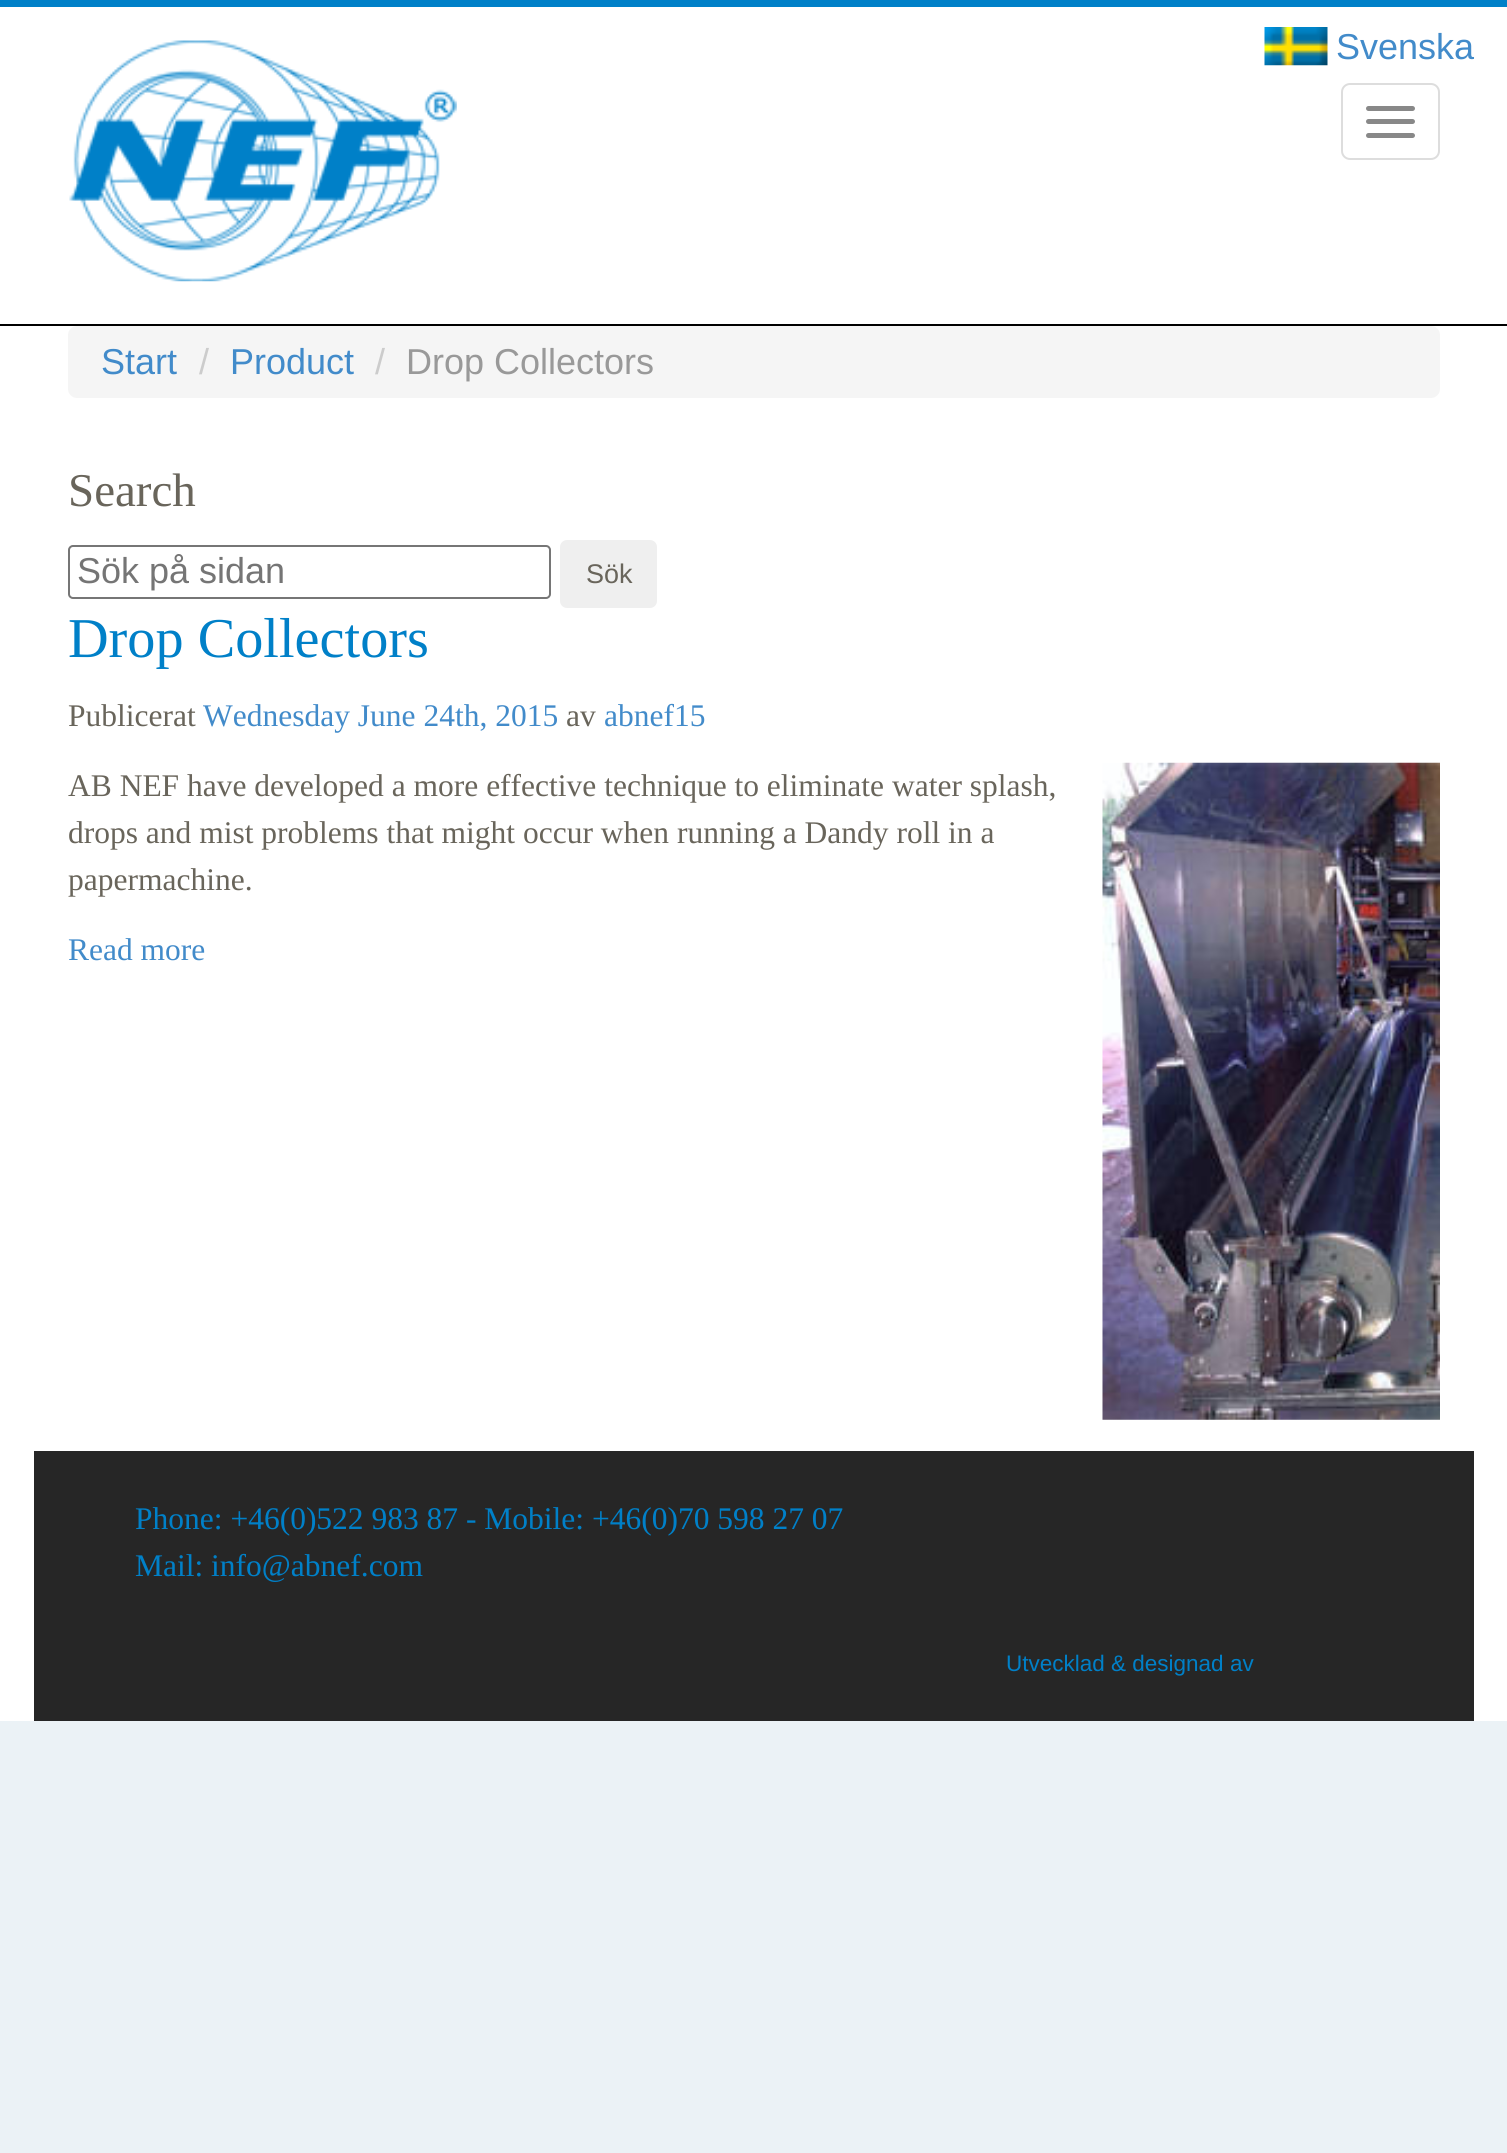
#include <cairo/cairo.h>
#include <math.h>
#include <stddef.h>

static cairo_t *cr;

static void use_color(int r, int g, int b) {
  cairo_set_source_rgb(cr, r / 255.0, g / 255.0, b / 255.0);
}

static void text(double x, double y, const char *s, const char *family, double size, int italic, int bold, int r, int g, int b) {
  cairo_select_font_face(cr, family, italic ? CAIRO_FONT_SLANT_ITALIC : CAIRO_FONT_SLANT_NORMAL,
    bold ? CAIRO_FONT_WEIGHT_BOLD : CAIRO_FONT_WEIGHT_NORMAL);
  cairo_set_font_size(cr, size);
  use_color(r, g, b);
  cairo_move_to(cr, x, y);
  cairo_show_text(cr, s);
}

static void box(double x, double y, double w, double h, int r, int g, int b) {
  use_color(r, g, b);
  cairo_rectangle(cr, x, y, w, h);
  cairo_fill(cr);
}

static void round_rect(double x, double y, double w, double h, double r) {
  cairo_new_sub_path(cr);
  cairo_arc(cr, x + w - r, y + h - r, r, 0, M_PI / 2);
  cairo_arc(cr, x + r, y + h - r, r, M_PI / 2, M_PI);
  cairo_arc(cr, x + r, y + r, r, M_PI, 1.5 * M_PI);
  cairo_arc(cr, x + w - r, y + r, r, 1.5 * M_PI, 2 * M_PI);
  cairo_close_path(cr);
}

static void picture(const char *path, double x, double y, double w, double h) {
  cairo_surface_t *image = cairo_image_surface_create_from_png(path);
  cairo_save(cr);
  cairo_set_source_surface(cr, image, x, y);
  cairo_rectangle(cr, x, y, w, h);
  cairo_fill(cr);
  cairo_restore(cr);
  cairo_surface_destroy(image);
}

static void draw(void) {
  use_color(235, 242, 246);
  cairo_paint(cr);
  box(0, 0, 1507, 7, 0, 128, 200);
  box(0, 7, 1507, 317, 255, 255, 255);
  picture("img_01.png", 69, 40, 388, 242);
  picture("img_02.png", 1264, 27, 64, 39);
  round_rect(1342, 84, 97, 75, 8);
  use_color(221, 221, 221);
  cairo_stroke(cr);
  use_color(136, 136, 136);
  round_rect(1366, 106, 49, 5, 2.5);
  cairo_fill(cr);
  round_rect(1366, 119, 49, 5, 2.5);
  cairo_fill(cr);
  round_rect(1366, 133, 49, 5, 2.5);
  cairo_fill(cr);
  box(0, 324, 1507, 2, 0, 0, 0);
  box(0, 326, 1507, 1395, 255, 255, 255);
  use_color(245, 245, 245);
  round_rect(68, 326, 1372, 72, 9);
  cairo_fill(cr);
  round_rect(69, 546, 481, 52, 4);
  use_color(118, 118, 118);
  cairo_stroke(cr);
  use_color(239, 239, 239);
  round_rect(560, 540, 97, 68, 7);
  cairo_fill(cr);
  picture("img_03.png", 1102, 762, 338, 658);
  box(34, 1451, 1440, 270, 38, 38, 38);
  text(1336, 59, "Svenska", "Liberation Sans", 36, 0, 0, 66, 139, 202);
  text(101, 374, "Start", "Liberation Sans", 36, 0, 0, 66, 139, 202);
  text(199, 374, "/", "Liberation Sans", 36, 0, 0, 204, 204, 204);
  text(230, 374, "Product", "Liberation Sans", 36, 0, 0, 66, 139, 202);
  text(375, 374, "/", "Liberation Sans", 36, 0, 0, 204, 204, 204);
  text(406, 374, "Drop Collectors", "Liberation Sans", 36, 0, 0, 153, 153, 153);
  text(68, 506, "Search", "Liberation Serif", 47, 0, 0, 105, 101, 91);
  text(77, 583, "Sök på sidan", "Liberation Sans", 36, 0, 0, 117, 117, 117);
  text(586, 583, "Sök", "Liberation Sans", 27, 0, 0, 105, 101, 91);
  text(68, 657, "Drop Collectors", "Liberation Serif", 56.25, 0, 0, 0, 128, 200);
  text(68, 726, "Publicerat", "Liberation Serif", 31.5, 0, 0, 105, 101, 91);
  text(203, 726, "Wednesday June 24th, 2015", "Liberation Serif", 31.5, 0, 0, 66, 139, 202);
  text(566, 726, "av", "Liberation Serif", 31.5, 0, 0, 105, 101, 91);
  text(604, 726, "abnef15", "Liberation Serif", 31.5, 0, 0, 66, 139, 202);
  text(68, 796, "AB NEF have developed a more effective technique to eliminate water splash,", "Liberation Serif", 31.5, 0, 0, 105, 101, 91);
  text(68, 843, "drops and mist problems that might occur when running a Dandy roll in a", "Liberation Serif", 31.5, 0, 0, 105, 101, 91);
  text(68, 890, "papermachine.", "Liberation Serif", 31.5, 0, 0, 105, 101, 91);
  text(68, 960, "Read more", "Liberation Serif", 31.5, 0, 0, 66, 139, 202);
  text(135, 1529, "Phone: +46(0)522 983 87 - Mobile: +46(0)70 598 27 07", "Liberation Serif", 31.5, 0, 0, 0, 128, 200);
  text(135, 1576, "Mail: info@abnef.com", "Liberation Serif", 31.5, 0, 0, 0, 128, 200);
  text(1006, 1671, "Utvecklad & designad av", "Liberation Sans", 22.5, 0, 0, 0, 128, 200);
}

int main(void) {
  cairo_surface_t *surface = cairo_image_surface_create(CAIRO_FORMAT_RGB24, 1507, 2153);
  cr = cairo_create(surface);
  cairo_font_options_t *options = cairo_font_options_create();
  cairo_font_options_set_hint_metrics(options, CAIRO_HINT_METRICS_OFF);
  cairo_font_options_set_hint_style(options, CAIRO_HINT_STYLE_NONE);
  cairo_set_font_options(cr, options);
  cairo_set_miter_limit(cr, 4);
  draw();
  cairo_surface_write_to_png(surface, "out.png");
  cairo_font_options_destroy(options);
  cairo_destroy(cr);
  cairo_surface_destroy(surface);
  return 0;
}
